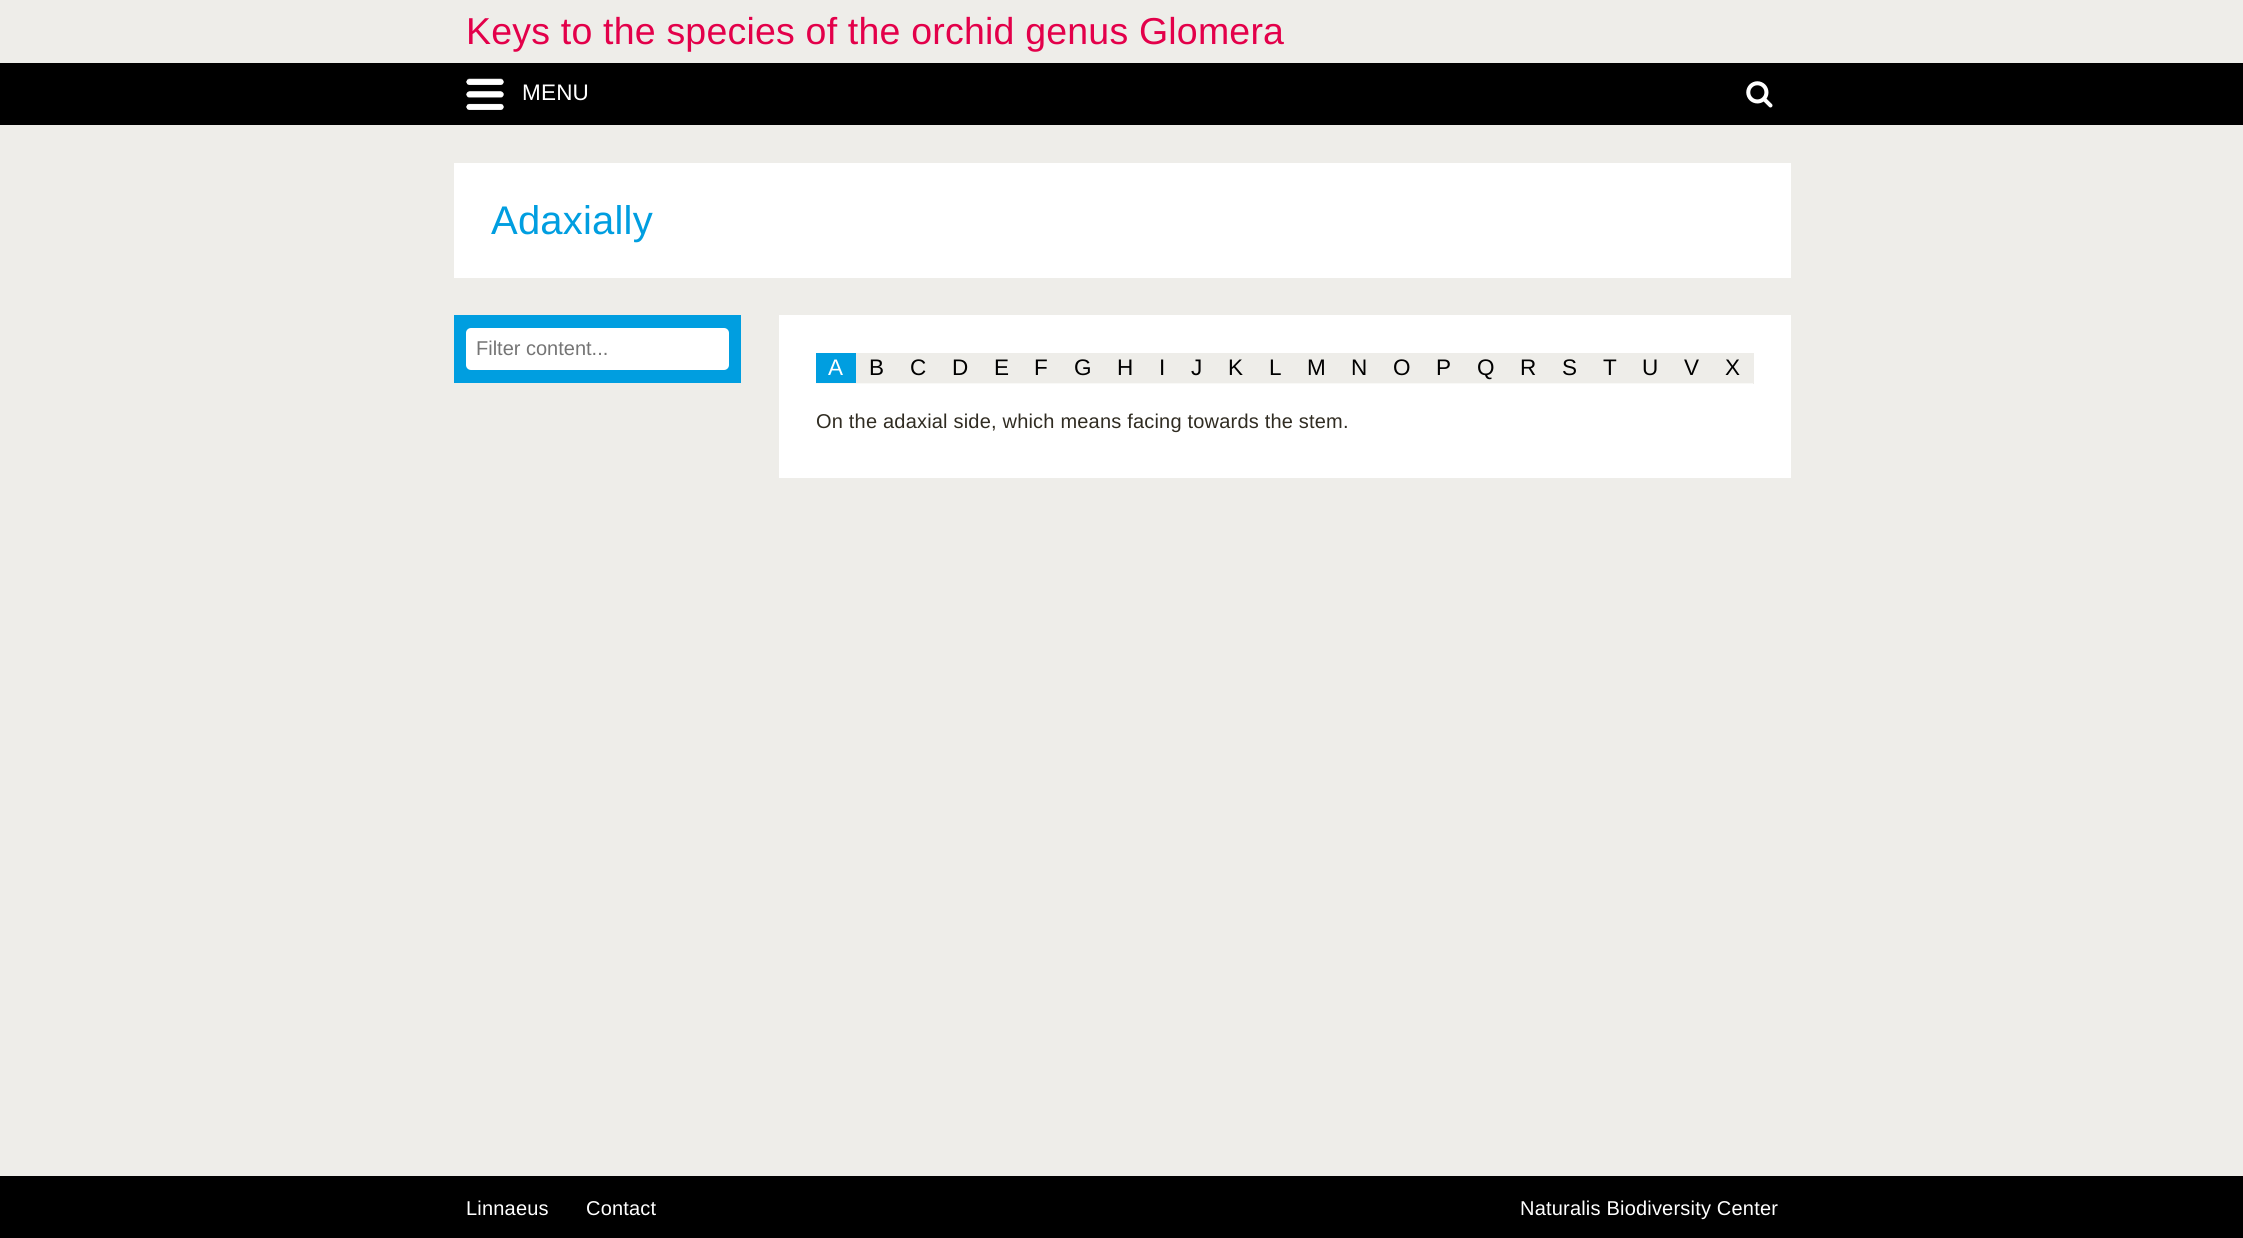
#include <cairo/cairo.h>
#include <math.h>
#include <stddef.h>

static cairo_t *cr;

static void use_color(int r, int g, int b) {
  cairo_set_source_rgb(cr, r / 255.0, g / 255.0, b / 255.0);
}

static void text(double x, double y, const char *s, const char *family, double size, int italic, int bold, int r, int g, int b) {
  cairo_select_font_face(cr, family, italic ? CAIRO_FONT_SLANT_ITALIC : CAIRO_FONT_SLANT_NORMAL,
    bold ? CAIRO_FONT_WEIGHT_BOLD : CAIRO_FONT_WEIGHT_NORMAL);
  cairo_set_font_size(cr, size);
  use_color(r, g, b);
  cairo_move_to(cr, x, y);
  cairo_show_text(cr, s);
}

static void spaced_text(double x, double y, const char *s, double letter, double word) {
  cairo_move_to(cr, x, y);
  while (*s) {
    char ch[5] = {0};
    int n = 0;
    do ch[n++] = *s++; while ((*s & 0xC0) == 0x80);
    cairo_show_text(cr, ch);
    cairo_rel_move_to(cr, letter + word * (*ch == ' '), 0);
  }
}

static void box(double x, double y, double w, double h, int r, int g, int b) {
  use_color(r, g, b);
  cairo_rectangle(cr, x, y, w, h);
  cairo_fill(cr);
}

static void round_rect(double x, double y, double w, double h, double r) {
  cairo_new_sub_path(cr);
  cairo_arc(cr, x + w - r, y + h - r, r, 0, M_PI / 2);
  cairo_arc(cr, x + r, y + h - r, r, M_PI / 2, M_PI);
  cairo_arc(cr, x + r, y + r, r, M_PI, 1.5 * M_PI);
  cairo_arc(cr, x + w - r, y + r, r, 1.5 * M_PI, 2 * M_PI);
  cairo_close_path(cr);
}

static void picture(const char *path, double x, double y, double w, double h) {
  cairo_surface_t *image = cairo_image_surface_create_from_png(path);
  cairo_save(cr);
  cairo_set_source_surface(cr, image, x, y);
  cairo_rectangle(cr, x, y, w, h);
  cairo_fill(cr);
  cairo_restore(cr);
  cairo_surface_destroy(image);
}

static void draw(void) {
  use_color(238, 237, 233);
  cairo_paint(cr);
  box(0, 63, 2243, 62, 0, 0, 0);
  picture("img_01.png", 466, 78, 38, 32);
  picture("img_02.png", 1746, 81, 27, 27);
  box(454, 163, 1337, 115, 255, 255, 255);
  box(454, 315, 287, 68, 0, 158, 224);
  use_color(255, 255, 255);
  round_rect(466, 328, 263, 42, 5);
  cairo_fill(cr);
  box(779, 315, 1012, 163, 255, 255, 255);
  box(856, 353, 898, 31, 238, 237, 233);
  box(816, 353, 40, 30, 0, 158, 224);
  box(816, 383, 937, 1, 249, 249, 247);
  box(0, 1176, 2243, 62, 0, 0, 0);
  cairo_select_font_face(cr, "Liberation Sans", CAIRO_FONT_SLANT_NORMAL, CAIRO_FONT_WEIGHT_NORMAL);
  cairo_set_font_size(cr, 37.5);
  use_color(227, 0, 74);
  spaced_text(466, 44, "Keys to the species of the orchid genus Glomera", 0.2, 0);
  cairo_set_font_size(cr, 22.5);
  use_color(255, 255, 255);
  spaced_text(522, 100, "MENU", 0.2, 0);
  cairo_set_font_size(cr, 40);
  use_color(0, 158, 224);
  spaced_text(491, 234, "Adaxially", 0.2, 0);
  text(476, 355, "Filter content...", "Liberation Sans", 20, 0, 0, 117, 117, 117);
  cairo_set_font_size(cr, 22.5);
  use_color(255, 255, 255);
  spaced_text(828, 375, "A", 0.2, 0);
  use_color(0, 0, 0);
  spaced_text(869, 375, "B", 0.2, 0);
  spaced_text(910, 375, "C", 0.2, 0);
  spaced_text(952, 375, "D", 0.2, 0);
  spaced_text(994, 375, "E", 0.2, 0);
  spaced_text(1034, 375, "F", 0.2, 0);
  spaced_text(1074, 375, "G", 0.2, 0);
  spaced_text(1117, 375, "H", 0.2, 0);
  spaced_text(1159, 375, "I", 0.2, 0);
  spaced_text(1191, 375, "J", 0.2, 0);
  spaced_text(1228, 375, "K", 0.2, 0);
  spaced_text(1269, 375, "L", 0.2, 0);
  spaced_text(1307, 375, "M", 0.2, 0);
  spaced_text(1351, 375, "N", 0.2, 0);
  spaced_text(1393, 375, "O", 0.2, 0);
  spaced_text(1436, 375, "P", 0.2, 0);
  spaced_text(1477, 375, "Q", 0.2, 0);
  spaced_text(1520, 375, "R", 0.2, 0);
  spaced_text(1562, 375, "S", 0.2, 0);
  spaced_text(1603, 375, "T", 0.2, 0);
  spaced_text(1642, 375, "U", 0.2, 0);
  spaced_text(1684, 375, "V", 0.2, 0);
  spaced_text(1725, 375, "X", 0.2, 0);
  cairo_set_font_size(cr, 20);
  use_color(48, 44, 34);
  spaced_text(816, 428, "On the adaxial side, which means facing towards the stem.", 0.2, 0);
  use_color(255, 255, 255);
  spaced_text(466, 1215, "Linnaeus", 0.2, 0);
  spaced_text(586, 1215, "Contact", 0.2, 0);
  spaced_text(1520, 1215, "Naturalis Biodiversity Center", 0.2, 0);
}

int main(void) {
  cairo_surface_t *surface = cairo_image_surface_create(CAIRO_FORMAT_RGB24, 2243, 1238);
  cr = cairo_create(surface);
  cairo_font_options_t *options = cairo_font_options_create();
  cairo_font_options_set_hint_metrics(options, CAIRO_HINT_METRICS_OFF);
  cairo_font_options_set_hint_style(options, CAIRO_HINT_STYLE_NONE);
  cairo_set_font_options(cr, options);
  cairo_set_miter_limit(cr, 4);
  draw();
  cairo_surface_write_to_png(surface, "out.png");
  cairo_font_options_destroy(options);
  cairo_destroy(cr);
  cairo_surface_destroy(surface);
  return 0;
}
